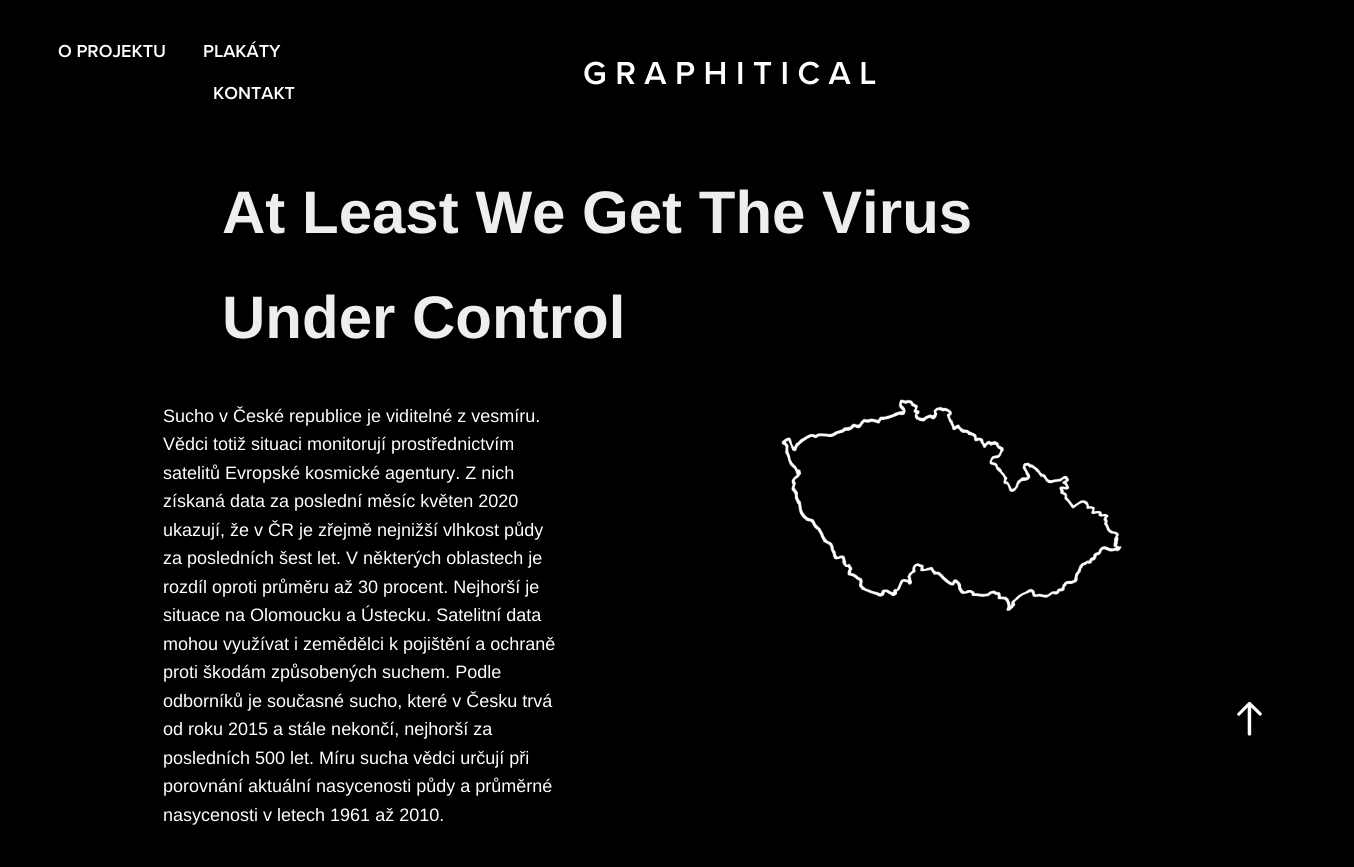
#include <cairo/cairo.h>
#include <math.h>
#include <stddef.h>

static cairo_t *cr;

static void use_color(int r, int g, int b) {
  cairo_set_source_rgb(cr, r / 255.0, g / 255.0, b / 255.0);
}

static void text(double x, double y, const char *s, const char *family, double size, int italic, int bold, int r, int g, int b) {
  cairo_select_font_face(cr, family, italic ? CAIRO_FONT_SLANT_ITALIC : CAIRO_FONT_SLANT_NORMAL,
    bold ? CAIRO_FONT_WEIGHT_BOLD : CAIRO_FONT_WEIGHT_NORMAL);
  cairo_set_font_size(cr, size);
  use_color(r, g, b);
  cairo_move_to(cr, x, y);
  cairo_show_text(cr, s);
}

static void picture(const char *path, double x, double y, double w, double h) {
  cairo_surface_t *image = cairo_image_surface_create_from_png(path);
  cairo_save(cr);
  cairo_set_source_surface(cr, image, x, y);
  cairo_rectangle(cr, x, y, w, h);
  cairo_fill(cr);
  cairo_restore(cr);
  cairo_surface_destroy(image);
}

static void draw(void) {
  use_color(0, 0, 0);
  cairo_paint(cr);
  picture("img_01.png", 781, 399, 341, 213);
  picture("img_02.png", 1237, 701, 25, 35);
  text(58, 57, "O PROJEKTU", "Proxima Nova SemiBold", 18, 0, 0, 255, 255, 255);
  text(203, 57, "PLAKÁTY", "Proxima Nova SemiBold", 18, 0, 0, 255, 255, 255);
  text(213, 99, "KONTAKT", "Proxima Nova SemiBold", 18, 0, 0, 255, 255, 255);
  text(583, 84, "G R A P H I T I C A L", "Proxima Nova SemiBold", 33, 0, 0, 255, 255, 255);
  text(222, 233, "At Least We Get The Virus", "Liberation Sans", 60, 0, 1, 238, 238, 238);
  text(222, 338, "Under Control", "Liberation Sans", 60, 0, 1, 238, 238, 238);
  text(163, 422, "Sucho v České republice je viditelné z vesmíru.", "Liberation Sans", 18, 0, 0, 255, 255, 255);
  text(163, 450, "Vědci totiž situaci monitorují prostřednictvím", "Liberation Sans", 18, 0, 0, 255, 255, 255);
  text(163, 479, "satelitů Evropské kosmické agentury. Z nich", "Liberation Sans", 18, 0, 0, 255, 255, 255);
  text(163, 507, "získaná data za poslední měsíc květen 2020", "Liberation Sans", 18, 0, 0, 255, 255, 255);
  text(163, 536, "ukazují, že v ČR je zřejmě nejnižší vlhkost půdy", "Liberation Sans", 18, 0, 0, 255, 255, 255);
  text(163, 564, "za posledních šest let. V některých oblastech je", "Liberation Sans", 18, 0, 0, 255, 255, 255);
  text(163, 593, "rozdíl oproti průměru až 30 procent. Nejhorší je", "Liberation Sans", 18, 0, 0, 255, 255, 255);
  text(163, 621, "situace na Olomoucku a Ústecku. Satelitní data", "Liberation Sans", 18, 0, 0, 255, 255, 255);
  text(163, 650, "mohou využívat i zemědělci k pojištění a ochraně", "Liberation Sans", 18, 0, 0, 255, 255, 255);
  text(163, 678, "proti škodám způsobených suchem. Podle", "Liberation Sans", 18, 0, 0, 255, 255, 255);
  text(163, 707, "odborníků je současné sucho, které v Česku trvá", "Liberation Sans", 18, 0, 0, 255, 255, 255);
  text(163, 735, "od roku 2015 a stále nekončí, nejhorší za", "Liberation Sans", 18, 0, 0, 255, 255, 255);
  text(163, 764, "posledních 500 let. Míru sucha vědci určují při", "Liberation Sans", 18, 0, 0, 255, 255, 255);
  text(163, 792, "porovnání aktuální nasycenosti půdy a průměrné", "Liberation Sans", 18, 0, 0, 255, 255, 255);
  text(163, 821, "nasycenosti v letech 1961 až 2010.", "Liberation Sans", 18, 0, 0, 255, 255, 255);
}

int main(void) {
  cairo_surface_t *surface = cairo_image_surface_create(CAIRO_FORMAT_RGB24, 1354, 867);
  cr = cairo_create(surface);
  cairo_font_options_t *options = cairo_font_options_create();
  cairo_font_options_set_hint_metrics(options, CAIRO_HINT_METRICS_OFF);
  cairo_font_options_set_hint_style(options, CAIRO_HINT_STYLE_NONE);
  cairo_set_font_options(cr, options);
  cairo_set_miter_limit(cr, 4);
  draw();
  cairo_surface_write_to_png(surface, "out.png");
  cairo_font_options_destroy(options);
  cairo_destroy(cr);
  cairo_surface_destroy(surface);
  return 0;
}
